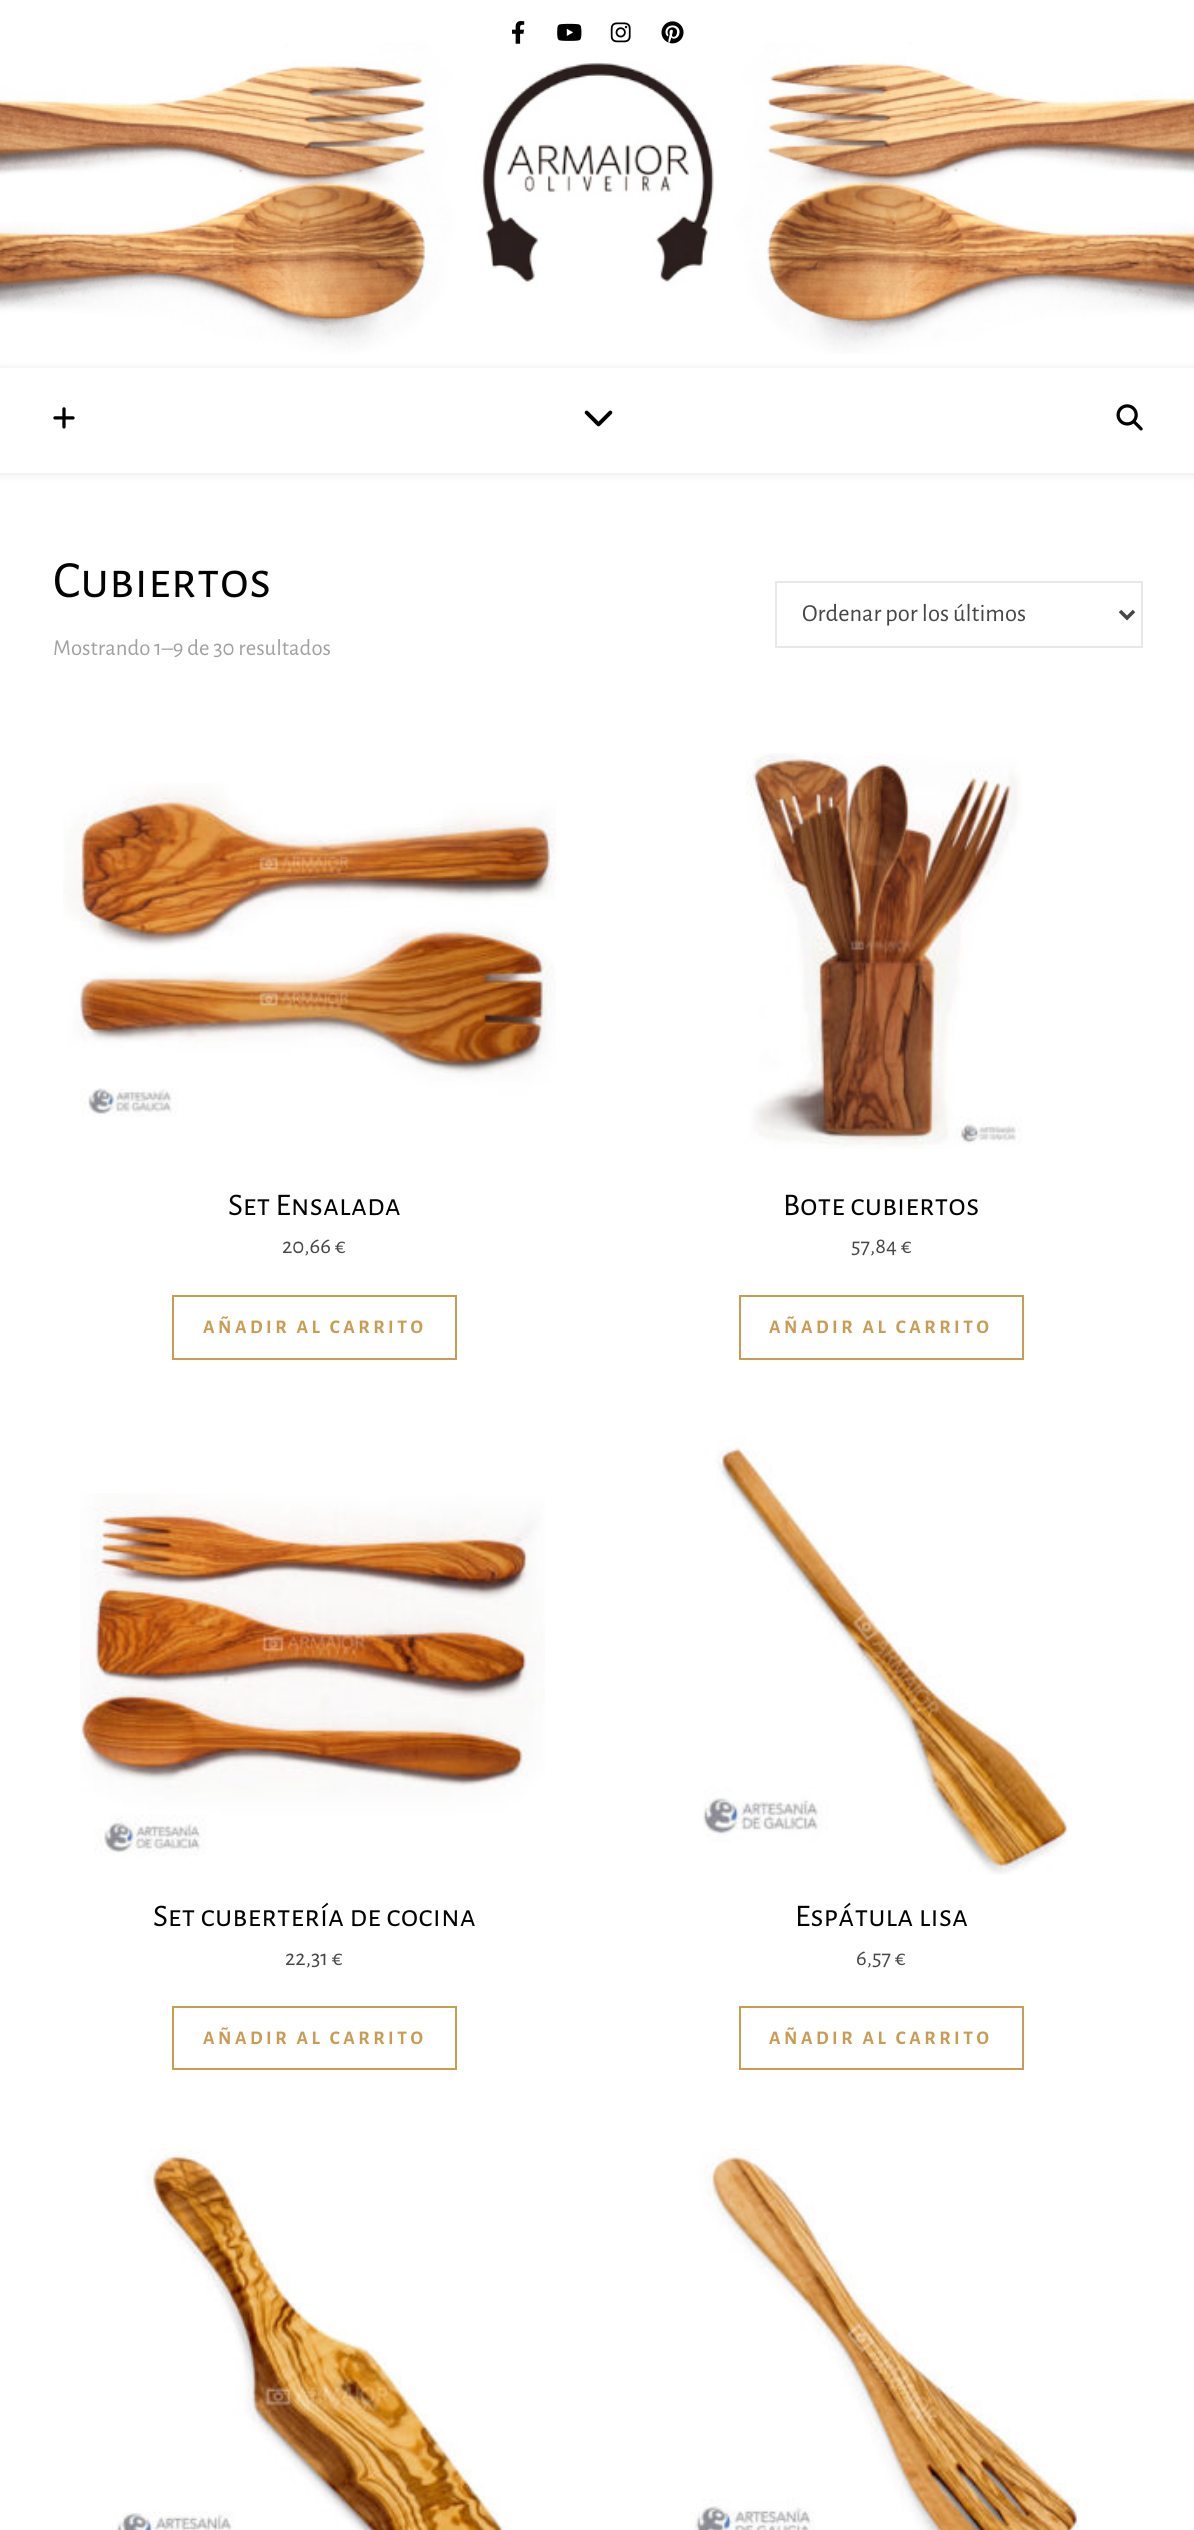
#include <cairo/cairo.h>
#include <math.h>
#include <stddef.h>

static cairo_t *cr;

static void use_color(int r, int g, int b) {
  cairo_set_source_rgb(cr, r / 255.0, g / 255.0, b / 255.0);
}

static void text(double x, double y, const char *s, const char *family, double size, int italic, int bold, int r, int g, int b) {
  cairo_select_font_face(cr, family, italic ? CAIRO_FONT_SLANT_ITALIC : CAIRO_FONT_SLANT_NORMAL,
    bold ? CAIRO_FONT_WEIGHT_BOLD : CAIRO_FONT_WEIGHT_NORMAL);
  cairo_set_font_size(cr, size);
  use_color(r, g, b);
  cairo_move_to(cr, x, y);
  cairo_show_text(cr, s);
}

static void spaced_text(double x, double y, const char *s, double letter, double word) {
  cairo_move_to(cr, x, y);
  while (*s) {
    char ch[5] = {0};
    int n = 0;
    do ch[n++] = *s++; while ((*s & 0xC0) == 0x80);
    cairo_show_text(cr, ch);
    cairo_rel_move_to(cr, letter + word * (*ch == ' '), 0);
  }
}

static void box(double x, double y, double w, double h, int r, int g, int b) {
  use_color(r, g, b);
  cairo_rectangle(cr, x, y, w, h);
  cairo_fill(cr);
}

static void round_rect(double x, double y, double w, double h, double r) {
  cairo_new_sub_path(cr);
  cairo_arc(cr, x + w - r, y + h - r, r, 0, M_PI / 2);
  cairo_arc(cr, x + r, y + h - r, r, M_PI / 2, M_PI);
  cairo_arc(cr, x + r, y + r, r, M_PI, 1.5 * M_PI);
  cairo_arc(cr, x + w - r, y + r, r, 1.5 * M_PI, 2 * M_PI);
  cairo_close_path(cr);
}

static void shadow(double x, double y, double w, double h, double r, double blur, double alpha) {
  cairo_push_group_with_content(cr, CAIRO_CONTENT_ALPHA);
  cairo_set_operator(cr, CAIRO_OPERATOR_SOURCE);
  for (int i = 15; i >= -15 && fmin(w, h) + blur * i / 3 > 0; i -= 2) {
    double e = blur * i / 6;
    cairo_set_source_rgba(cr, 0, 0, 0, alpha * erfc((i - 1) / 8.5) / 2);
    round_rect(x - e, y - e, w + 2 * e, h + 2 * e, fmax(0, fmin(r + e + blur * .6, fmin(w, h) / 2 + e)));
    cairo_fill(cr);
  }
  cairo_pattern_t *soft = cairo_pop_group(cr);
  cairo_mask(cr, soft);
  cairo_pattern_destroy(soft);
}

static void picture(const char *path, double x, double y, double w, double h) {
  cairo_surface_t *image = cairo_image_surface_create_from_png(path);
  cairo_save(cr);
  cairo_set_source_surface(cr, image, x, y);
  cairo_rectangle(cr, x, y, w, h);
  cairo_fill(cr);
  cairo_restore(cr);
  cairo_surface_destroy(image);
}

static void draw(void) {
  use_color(255, 255, 255);
  cairo_paint(cr);
  picture("img_05.png", 0, 42, 1194, 312);
  picture("img_01.png", 512, 21, 13, 23);
  picture("img_02.png", 557, 23, 25, 18);
  picture("img_03.png", 610, 22, 21, 21);
  picture("img_04.png", 661, 21, 23, 23);
  use_color(0, 0, 0);
  shadow(0, 369, 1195, 105, 0, 4.5, 0.1);
  box(0, 368, 1194, 105, 255, 255, 255);
  picture("img_06.png", 53, 407, 22, 22);
  picture("img_07.png", 584, 410, 29, 17);
  picture("img_08.png", 1116, 404, 27, 27);
  cairo_rectangle(cr, 776, 582, 366, 65);
  use_color(232, 232, 232);
  cairo_stroke(cr);
  cairo_new_path(cr);
  cairo_move_to(cr, 1120, 611);
  cairo_line_to(cr, 1127, 618);
  cairo_line_to(cr, 1134, 611);
  use_color(70, 70, 70);
  cairo_set_line_width(cr, 3.5);
  cairo_stroke(cr);
  picture("img_09.png", 63, 783, 493, 334);
  cairo_rectangle(cr, 173, 1296, 283, 63);
  use_color(202, 155, 82);
  cairo_set_line_width(cr, 2);
  cairo_stroke(cr);
  picture("img_10.png", 745, 753, 277, 396);
  cairo_rectangle(cr, 740, 1296, 283, 63);
  cairo_stroke(cr);
  picture("img_11.png", 80, 1493, 465, 364);
  cairo_rectangle(cr, 173, 2007, 283, 62);
  cairo_stroke(cr);
  picture("img_12.png", 703, 1437, 365, 438);
  cairo_rectangle(cr, 740, 2007, 283, 62);
  cairo_stroke(cr);
  picture("img_13.png", 112, 2149, 399, 381);
  picture("img_14.png", 690, 2149, 391, 381);
  text(53, 597, "Cubiertos", "Alegreya Sans SC", 52.5, 0, 0, 3, 3, 3);
  text(802, 621, "Ordenar por los últimos", "Alegreya Sans", 24.5, 0, 0, 70, 70, 70);
  text(53, 655, "Mostrando 1–9 de 30 resultados", "Alegreya Sans", 22.75, 0, 0, 161, 161, 161);
  text(228, 1215, "Set Ensalada", "Alegreya Sans SC", 31.5, 0, 0, 3, 3, 3);
  text(282, 1253, "20,66 €", "Alegreya Sans", 22.75, 0, 0, 70, 70, 70);
  cairo_select_font_face(cr, "Alegreya Sans", CAIRO_FONT_SLANT_NORMAL, CAIRO_FONT_WEIGHT_BOLD);
  cairo_set_font_size(cr, 19.25);
  use_color(202, 155, 82);
  spaced_text(203, 1333, "AÑADIR AL CARRITO", 3.5, 0);
  text(783, 1215, "Bote cubiertos", "Alegreya Sans SC", 31.5, 0, 0, 3, 3, 3);
  text(851, 1253, "57,84 €", "Alegreya Sans", 22.75, 0, 0, 70, 70, 70);
  cairo_select_font_face(cr, "Alegreya Sans", CAIRO_FONT_SLANT_NORMAL, CAIRO_FONT_WEIGHT_BOLD);
  cairo_set_font_size(cr, 19.25);
  use_color(202, 155, 82);
  spaced_text(769, 1333, "AÑADIR AL CARRITO", 3.5, 0);
  text(153, 1926, "Set cubertería de cocina", "Alegreya Sans SC", 31.5, 0, 0, 3, 3, 3);
  text(285, 1965, "22,31 €", "Alegreya Sans", 22.75, 0, 0, 70, 70, 70);
  cairo_select_font_face(cr, "Alegreya Sans", CAIRO_FONT_SLANT_NORMAL, CAIRO_FONT_WEIGHT_BOLD);
  cairo_set_font_size(cr, 19.25);
  use_color(202, 155, 82);
  spaced_text(203, 2044, "AÑADIR AL CARRITO", 3.5, 0);
  text(795, 1926, "Espátula lisa", "Alegreya Sans SC", 31.5, 0, 0, 3, 3, 3);
  text(856, 1965, "6,57 €", "Alegreya Sans", 22.75, 0, 0, 70, 70, 70);
  cairo_select_font_face(cr, "Alegreya Sans", CAIRO_FONT_SLANT_NORMAL, CAIRO_FONT_WEIGHT_BOLD);
  cairo_set_font_size(cr, 19.25);
  use_color(202, 155, 82);
  spaced_text(769, 2044, "AÑADIR AL CARRITO", 3.5, 0);
}

int main(void) {
  cairo_surface_t *surface = cairo_image_surface_create(CAIRO_FORMAT_RGB24, 1194, 2530);
  cr = cairo_create(surface);
  cairo_font_options_t *options = cairo_font_options_create();
  cairo_font_options_set_hint_metrics(options, CAIRO_HINT_METRICS_OFF);
  cairo_font_options_set_hint_style(options, CAIRO_HINT_STYLE_NONE);
  cairo_set_font_options(cr, options);
  cairo_set_miter_limit(cr, 4);
  draw();
  cairo_surface_write_to_png(surface, "out.png");
  cairo_font_options_destroy(options);
  cairo_destroy(cr);
  cairo_surface_destroy(surface);
  return 0;
}
